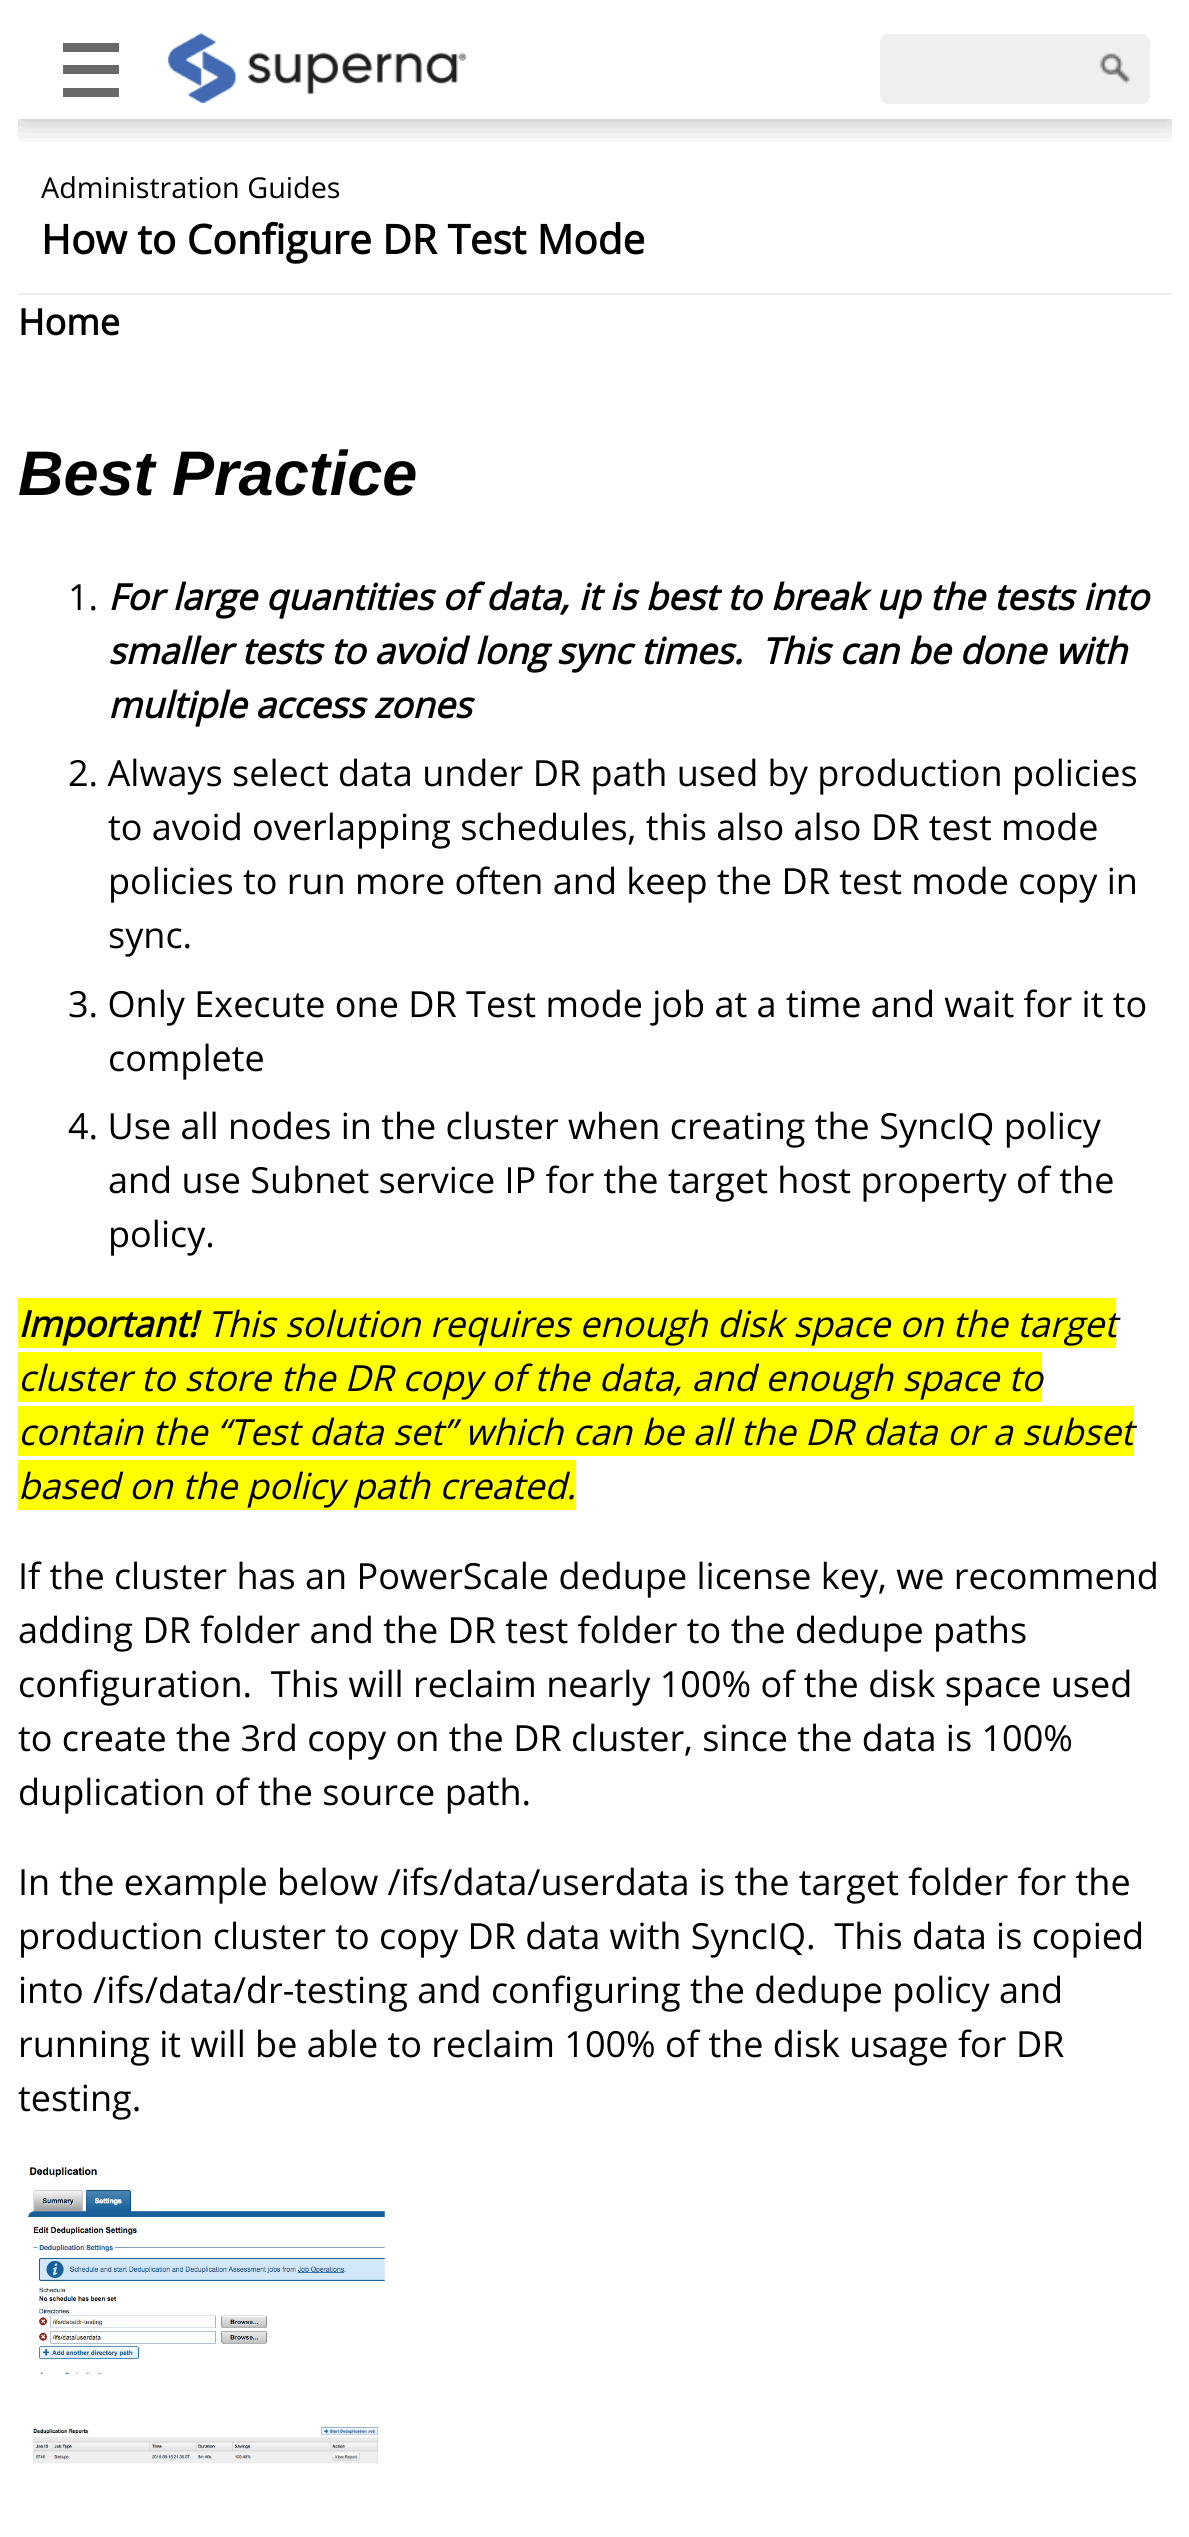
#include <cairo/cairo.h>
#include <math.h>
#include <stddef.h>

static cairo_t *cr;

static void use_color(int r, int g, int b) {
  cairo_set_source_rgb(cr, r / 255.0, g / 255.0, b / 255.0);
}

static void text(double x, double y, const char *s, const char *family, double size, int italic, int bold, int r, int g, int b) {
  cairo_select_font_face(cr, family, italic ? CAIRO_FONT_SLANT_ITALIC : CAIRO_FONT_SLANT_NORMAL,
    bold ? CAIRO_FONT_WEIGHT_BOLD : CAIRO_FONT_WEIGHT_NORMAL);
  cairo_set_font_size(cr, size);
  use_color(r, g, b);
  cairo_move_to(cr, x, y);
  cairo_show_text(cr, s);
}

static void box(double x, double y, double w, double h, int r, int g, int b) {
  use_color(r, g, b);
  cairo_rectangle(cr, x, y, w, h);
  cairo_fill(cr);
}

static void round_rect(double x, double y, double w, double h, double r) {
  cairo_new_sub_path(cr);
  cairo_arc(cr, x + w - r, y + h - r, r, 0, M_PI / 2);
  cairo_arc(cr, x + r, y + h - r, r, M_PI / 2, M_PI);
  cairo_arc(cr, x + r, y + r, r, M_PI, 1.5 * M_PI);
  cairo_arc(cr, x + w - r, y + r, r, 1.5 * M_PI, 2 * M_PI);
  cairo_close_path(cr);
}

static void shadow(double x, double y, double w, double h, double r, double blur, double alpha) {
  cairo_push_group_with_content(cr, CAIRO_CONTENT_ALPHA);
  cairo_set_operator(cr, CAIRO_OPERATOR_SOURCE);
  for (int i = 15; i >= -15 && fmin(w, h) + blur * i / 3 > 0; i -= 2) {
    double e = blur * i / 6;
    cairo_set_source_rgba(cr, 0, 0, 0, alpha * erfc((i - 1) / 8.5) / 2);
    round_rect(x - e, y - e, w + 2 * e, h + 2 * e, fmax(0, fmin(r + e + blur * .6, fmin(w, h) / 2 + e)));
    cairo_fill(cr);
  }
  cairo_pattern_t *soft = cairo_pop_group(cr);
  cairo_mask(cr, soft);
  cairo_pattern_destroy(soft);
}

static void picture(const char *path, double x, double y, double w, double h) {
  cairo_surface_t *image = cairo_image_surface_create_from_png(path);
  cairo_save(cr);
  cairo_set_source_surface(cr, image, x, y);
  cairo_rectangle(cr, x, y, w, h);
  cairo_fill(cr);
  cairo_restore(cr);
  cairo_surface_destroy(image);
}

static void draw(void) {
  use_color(255, 255, 255);
  cairo_paint(cr);
  cairo_save(cr);
  cairo_rectangle(cr, 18, 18, 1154, 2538);
  cairo_clip(cr);
  cairo_rectangle(cr, 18, 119, 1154, 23);
  cairo_clip(cr);
  use_color(0, 0, 0);
  shadow(18, 18, 1154, 101, 0, 17, 0.3);
  cairo_restore(cr);
  box(63, 65, 56, 9, 105, 105, 105);
  box(63, 43, 56, 9, 105, 105, 105);
  box(63, 88, 56, 9, 105, 105, 105);
  picture("img_01.png", 167, 33, 300, 72);
  use_color(239, 239, 239);
  round_rect(880, 34, 270, 70, 9);
  cairo_fill(cr);
  picture("img_02.png", 1099, 53, 32, 31);
  box(18, 142, 1154, 8, 255, 255, 255);
  box(18, 293, 1154, 2, 239, 239, 239);
  box(18, 1298, 1098, 50, 255, 255, 0);
  box(18, 1352, 1024, 50, 255, 255, 0);
  box(18, 1406, 1116, 50, 255, 255, 0);
  box(18, 1460, 558, 50, 255, 255, 0);
  picture("img_03.png", 28, 2167, 357, 207);
  picture("img_04.png", 33, 2427, 346, 37);
  text(41, 198, "Administration Guides", "Open Sans", 28.75, 0, 0, 0, 0, 0);
  text(41, 254, "How to Configure DR Test Mode", "Open Sans", 40.5, 0, 1, 0, 0, 0);
  text(18, 335, "Home", "Open Sans", 36, 0, 1, 0, 0, 0);
  text(18, 495, "Best Practice", "Liberation Sans", 63, 1, 1, 0, 0, 0);
  text(68, 610, "1.", "Open Sans", 36, 0, 0, 0, 0, 0);
  text(108, 610, "For large quantities of data, it is best to break up the tests into", "Open Sans", 36, 1, 1, 0, 0, 0);
  text(108, 664, "smaller tests to avoid long sync times.  This can be done with", "Open Sans", 36, 1, 1, 0, 0, 0);
  text(108, 718, "multiple access zones", "Open Sans", 36, 1, 1, 0, 0, 0);
  text(68, 786, "2. Always select data under DR path used by production policies", "Open Sans", 36, 0, 0, 0, 0, 0);
  text(108, 840, "to avoid overlapping schedules, this also also DR test mode", "Open Sans", 36, 0, 0, 0, 0, 0);
  text(108, 894, "policies to run more often and keep the DR test mode copy in", "Open Sans", 36, 0, 0, 0, 0, 0);
  text(108, 948, "sync.", "Open Sans", 36, 0, 0, 0, 0, 0);
  text(68, 1017, "3. Only Execute one DR Test mode job at a time and wait for it to", "Open Sans", 36, 0, 0, 0, 0, 0);
  text(108, 1071, "complete", "Open Sans", 36, 0, 0, 0, 0, 0);
  text(68, 1139, "4. Use all nodes in the cluster when creating the SyncIQ policy", "Open Sans", 36, 0, 0, 0, 0, 0);
  text(108, 1193, "and use Subnet service IP for the target host property of the", "Open Sans", 36, 0, 0, 0, 0, 0);
  text(108, 1247, "policy.", "Open Sans", 36, 0, 0, 0, 0, 0);
  text(18, 1337, "Important!", "Open Sans", 36, 1, 1, 0, 0, 0);
  text(207, 1337, "This solution requires enough disk space on the target", "Open Sans", 36, 1, 0, 0, 0, 0);
  text(18, 1391, "cluster to store the DR copy of the data, and enough space to", "Open Sans", 36, 1, 0, 0, 0, 0);
  text(18, 1445, "contain the “Test data set” which can be all the DR data or a subset", "Open Sans", 36, 1, 0, 0, 0, 0);
  text(18, 1499, "based on the policy path created.", "Open Sans", 36, 1, 0, 0, 0, 0);
  text(18, 1589, "If the cluster has an PowerScale dedupe license key, we recommend", "Open Sans", 36, 0, 0, 0, 0, 0);
  text(18, 1643, "adding DR folder and the DR test folder to the dedupe paths", "Open Sans", 36, 0, 0, 0, 0, 0);
  text(18, 1697, "configuration.  This will reclaim nearly 100% of the disk space used", "Open Sans", 36, 0, 0, 0, 0, 0);
  text(18, 1751, "to create the 3rd copy on the DR cluster, since the data is 100%", "Open Sans", 36, 0, 0, 0, 0, 0);
  text(18, 1805, "duplication of the source path.", "Open Sans", 36, 0, 0, 0, 0, 0);
  text(18, 1895, "In the example below /ifs/data/userdata is the target folder for the", "Open Sans", 36, 0, 0, 0, 0, 0);
  text(18, 1949, "production cluster to copy DR data with SyncIQ.  This data is copied", "Open Sans", 36, 0, 0, 0, 0, 0);
  text(18, 2003, "into /ifs/data/dr-testing and configuring the dedupe policy and", "Open Sans", 36, 0, 0, 0, 0, 0);
  text(18, 2057, "running it will be able to reclaim 100% of the disk usage for DR", "Open Sans", 36, 0, 0, 0, 0, 0);
  text(18, 2111, "testing.", "Open Sans", 36, 0, 0, 0, 0, 0);
}

int main(void) {
  cairo_surface_t *surface = cairo_image_surface_create(CAIRO_FORMAT_RGB24, 1189, 2537);
  cr = cairo_create(surface);
  cairo_font_options_t *options = cairo_font_options_create();
  cairo_font_options_set_hint_metrics(options, CAIRO_HINT_METRICS_OFF);
  cairo_font_options_set_hint_style(options, CAIRO_HINT_STYLE_NONE);
  cairo_set_font_options(cr, options);
  cairo_set_miter_limit(cr, 4);
  draw();
  cairo_surface_write_to_png(surface, "out.png");
  cairo_font_options_destroy(options);
  cairo_destroy(cr);
  cairo_surface_destroy(surface);
  return 0;
}
